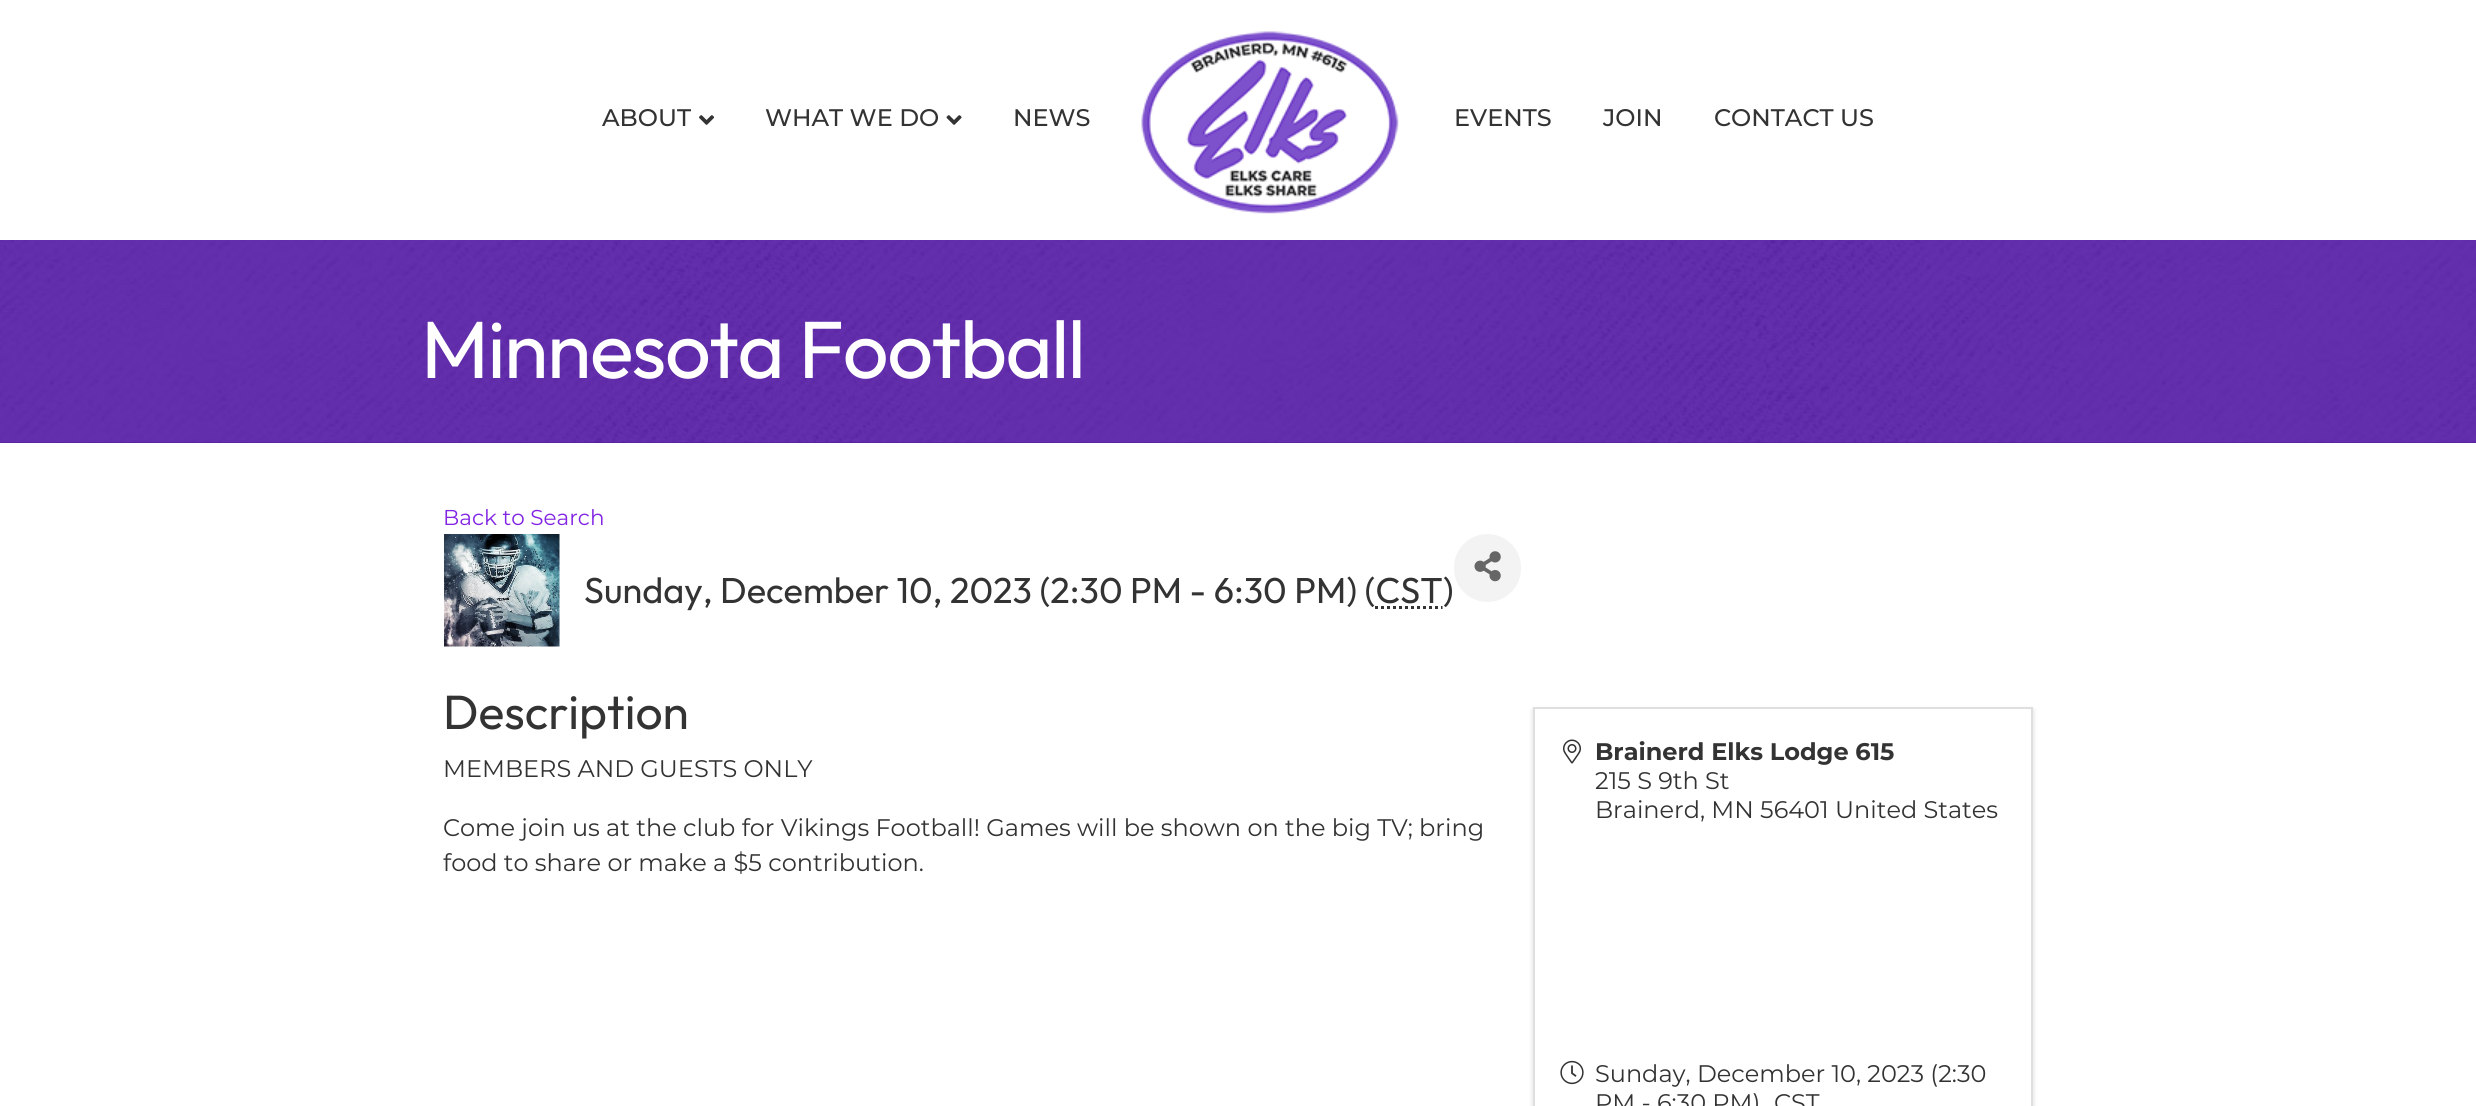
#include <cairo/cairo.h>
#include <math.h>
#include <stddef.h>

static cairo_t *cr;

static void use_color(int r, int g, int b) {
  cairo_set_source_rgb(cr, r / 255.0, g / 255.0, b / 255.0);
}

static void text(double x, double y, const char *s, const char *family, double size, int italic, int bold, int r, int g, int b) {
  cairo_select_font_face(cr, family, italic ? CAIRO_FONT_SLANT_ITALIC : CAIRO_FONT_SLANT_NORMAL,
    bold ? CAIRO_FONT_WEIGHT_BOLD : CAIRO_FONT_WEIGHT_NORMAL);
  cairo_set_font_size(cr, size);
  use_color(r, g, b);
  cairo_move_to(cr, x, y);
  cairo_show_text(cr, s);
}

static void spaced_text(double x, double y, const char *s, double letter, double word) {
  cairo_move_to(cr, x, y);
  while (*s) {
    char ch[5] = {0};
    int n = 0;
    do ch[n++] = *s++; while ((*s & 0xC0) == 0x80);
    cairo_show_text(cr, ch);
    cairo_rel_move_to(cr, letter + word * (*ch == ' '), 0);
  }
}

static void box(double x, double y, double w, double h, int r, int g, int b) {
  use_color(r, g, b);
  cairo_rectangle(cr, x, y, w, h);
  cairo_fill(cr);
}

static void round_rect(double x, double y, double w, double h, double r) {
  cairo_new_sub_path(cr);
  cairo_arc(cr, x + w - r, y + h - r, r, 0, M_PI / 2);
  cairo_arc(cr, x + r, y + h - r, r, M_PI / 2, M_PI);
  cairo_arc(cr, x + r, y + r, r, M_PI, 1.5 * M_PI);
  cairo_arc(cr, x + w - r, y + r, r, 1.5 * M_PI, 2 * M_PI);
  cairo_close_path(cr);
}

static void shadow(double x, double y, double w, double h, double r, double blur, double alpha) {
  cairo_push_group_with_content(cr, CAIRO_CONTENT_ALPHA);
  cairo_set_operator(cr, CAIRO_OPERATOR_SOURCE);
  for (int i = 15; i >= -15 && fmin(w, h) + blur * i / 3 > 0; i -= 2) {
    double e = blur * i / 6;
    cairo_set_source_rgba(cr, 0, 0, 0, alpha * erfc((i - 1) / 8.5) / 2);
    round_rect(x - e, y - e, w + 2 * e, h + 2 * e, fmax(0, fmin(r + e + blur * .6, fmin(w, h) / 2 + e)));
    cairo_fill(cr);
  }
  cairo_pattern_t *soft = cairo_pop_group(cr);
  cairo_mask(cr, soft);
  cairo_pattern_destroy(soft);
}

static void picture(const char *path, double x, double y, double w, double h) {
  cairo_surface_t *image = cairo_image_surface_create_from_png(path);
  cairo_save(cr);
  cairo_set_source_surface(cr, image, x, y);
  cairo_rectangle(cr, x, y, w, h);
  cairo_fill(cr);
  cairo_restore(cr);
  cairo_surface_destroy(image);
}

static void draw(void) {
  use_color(255, 255, 255);
  cairo_paint(cr);
  picture("img_01.png", 699, 115, 15, 10);
  picture("img_02.png", 946, 115, 16, 10);
  picture("img_03.png", 1141, 31, 258, 183);
  box(0, 442, 2476, 1, 74, 27, 157);
  picture("img_04.png", 0, 240, 2476, 203);
  picture("img_05.png", 444, 534, 116, 113);
  cairo_new_path(cr);
  cairo_move_to(cr, 1375, 607.5);
  cairo_line_to(cr, 1442.5, 607.5);
  use_color(51, 51, 51);
  cairo_set_line_width(cr, 3);
  cairo_set_dash(cr, (double[]){3, 3}, 2, 0);
  cairo_stroke(cr);
  use_color(243, 243, 243);
  round_rect(1454, 534, 67, 68, 33.5);
  cairo_fill(cr);
  picture("img_06.png", 1474, 551, 27, 31);
  use_color(0, 0, 0);
  shadow(1533, 710, 500, 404, 0, 2.5, 0.15);
  use_color(255, 255, 255);
  cairo_rectangle(cr, 1534, 708, 498, 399);
  cairo_fill_preserve(cr);
  use_color(223, 223, 223);
  cairo_set_line_width(cr, 2);
  cairo_set_dash(cr, NULL, 0, 0);
  cairo_stroke(cr);
  picture("img_07.png", 1563, 739, 18, 25);
  picture("img_08.png", 1560, 1060, 24, 25);
  text(602, 126, "ABOUT", "Montserrat Medium", 24, 0, 0, 51, 51, 51);
  text(765, 126, "WHAT WE DO", "Montserrat Medium", 24, 0, 0, 51, 51, 51);
  text(1013, 126, "NEWS", "Montserrat Medium", 24, 0, 0, 51, 51, 51);
  text(1454, 126, "EVENTS", "Montserrat Medium", 24, 0, 0, 51, 51, 51);
  text(1603, 126, "JOIN", "Montserrat Medium", 24, 0, 0, 51, 51, 51);
  text(1714, 126, "CONTACT US", "Montserrat Medium", 24, 0, 0, 51, 51, 51);
  cairo_select_font_face(cr, "Outfit Thin", CAIRO_FONT_SLANT_NORMAL, CAIRO_FONT_WEIGHT_NORMAL);
  cairo_set_font_size(cr, 81);
  use_color(255, 255, 255);
  spaced_text(421, 378, "Minnesota Football", -1.5, 0);
  text(443, 525, "Back to Search", "Montserrat", 21.5, 0, 0, 130, 36, 227);
  text(584, 603, "Sunday, December 10, 2023 (2:30 PM - 6:30 PM) (CST)", "Outfit Thin", 36, 0, 0, 51, 51, 51);
  text(443, 729, "Description", "Outfit Thin", 48, 0, 0, 51, 51, 51);
  text(443, 777, "MEMBERS AND GUESTS ONLY", "Montserrat", 24, 0, 0, 51, 51, 51);
  text(443, 836, "Come join us at the club for Vikings Football! Games will be shown on the big TV; bring", "Montserrat", 24, 0, 0, 51, 51, 51);
  text(443, 871, "food to share or make a $5 contribution.", "Montserrat", 24, 0, 0, 51, 51, 51);
  text(1595, 760, "Brainerd Elks Lodge 615", "Montserrat", 24, 0, 1, 51, 51, 51);
  text(1595, 789, "215 S 9th St", "Montserrat", 24, 0, 0, 51, 51, 51);
  text(1595, 818, "Brainerd, MN 56401 United States", "Montserrat", 24, 0, 0, 51, 51, 51);
  text(1595, 1082, "Sunday, December 10, 2023 (2:30", "Montserrat", 24, 0, 0, 51, 51, 51);
  text(1595, 1111, "PM - 6:30 PM)", "Montserrat", 24, 0, 0, 51, 51, 51);
  text(1774, 1111, "CST", "Montserrat", 24, 0, 0, 51, 51, 51);
}

int main(void) {
  cairo_surface_t *surface = cairo_image_surface_create(CAIRO_FORMAT_RGB24, 2476, 1106);
  cr = cairo_create(surface);
  cairo_font_options_t *options = cairo_font_options_create();
  cairo_font_options_set_hint_metrics(options, CAIRO_HINT_METRICS_OFF);
  cairo_font_options_set_hint_style(options, CAIRO_HINT_STYLE_NONE);
  cairo_set_font_options(cr, options);
  cairo_set_miter_limit(cr, 4);
  draw();
  cairo_surface_write_to_png(surface, "out.png");
  cairo_font_options_destroy(options);
  cairo_destroy(cr);
  cairo_surface_destroy(surface);
  return 0;
}
